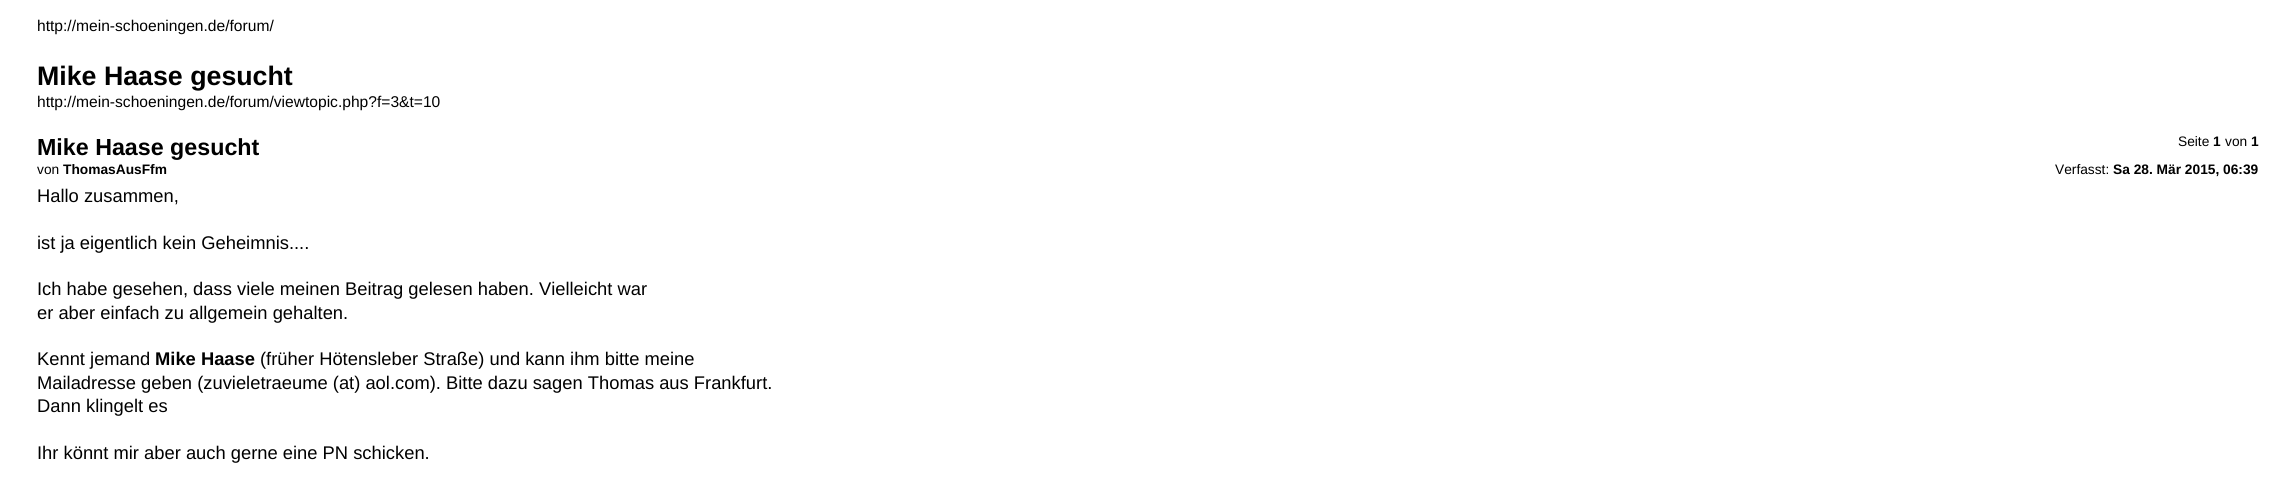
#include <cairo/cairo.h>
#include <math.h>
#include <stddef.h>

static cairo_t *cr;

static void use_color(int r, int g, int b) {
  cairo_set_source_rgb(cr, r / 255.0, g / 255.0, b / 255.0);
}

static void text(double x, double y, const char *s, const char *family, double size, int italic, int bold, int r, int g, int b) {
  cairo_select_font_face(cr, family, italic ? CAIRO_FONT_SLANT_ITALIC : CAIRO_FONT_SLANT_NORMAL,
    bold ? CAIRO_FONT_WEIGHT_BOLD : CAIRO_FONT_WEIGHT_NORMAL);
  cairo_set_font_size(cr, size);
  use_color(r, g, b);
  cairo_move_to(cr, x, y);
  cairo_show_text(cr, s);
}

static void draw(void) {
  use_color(255, 255, 255);
  cairo_paint(cr);
  text(37, 31, "http://mein-schoeningen.de/forum/", "Liberation Sans", 15.6, 0, 0, 0, 0, 0);
  text(37, 85, "Mike Haase gesucht", "Liberation Sans", 26.75, 0, 1, 0, 0, 0);
  text(37, 107, "http://mein-schoeningen.de/forum/viewtopic.php?f=3&t=10", "Liberation Sans", 15.6, 0, 0, 0, 0, 0);
  text(2178, 146, "Seite", "Liberation Sans", 13.75, 0, 0, 0, 0, 0);
  text(2213, 146, "1", "Liberation Sans", 13.75, 0, 1, 0, 0, 0);
  text(2225, 146, "von", "Liberation Sans", 13.75, 0, 0, 0, 0, 0);
  text(2251, 146, "1", "Liberation Sans", 13.75, 0, 1, 0, 0, 0);
  text(37, 155, "Mike Haase gesucht", "Liberation Sans", 23.25, 0, 1, 0, 0, 0);
  text(37, 174, "von", "Liberation Sans", 13.75, 0, 0, 0, 0, 0);
  text(63, 174, "ThomasAusFfm", "Liberation Sans", 13.75, 0, 1, 0, 0, 0);
  text(2055, 174, "Verfasst:", "Liberation Sans", 13.75, 0, 0, 0, 0, 0);
  text(2113, 174, "Sa 28. Mär 2015, 06:39", "Liberation Sans", 13.75, 0, 1, 0, 0, 0);
  text(37, 202, "Hallo zusammen,", "Liberation Sans", 18.35, 0, 0, 0, 0, 0);
  text(37, 249, "ist ja eigentlich kein Geheimnis....", "Liberation Sans", 18.35, 0, 0, 0, 0, 0);
  text(37, 295, "Ich habe gesehen, dass viele meinen Beitrag gelesen haben. Vielleicht war", "Liberation Sans", 18.35, 0, 0, 0, 0, 0);
  text(37, 319, "er aber einfach zu allgemein gehalten.", "Liberation Sans", 18.35, 0, 0, 0, 0, 0);
  text(37, 365, "Kennt jemand", "Liberation Sans", 18.35, 0, 0, 0, 0, 0);
  text(155, 365, "Mike Haase", "Liberation Sans", 18.35, 0, 1, 0, 0, 0);
  text(260, 365, "(früher Hötensleber Straße) und kann ihm bitte meine", "Liberation Sans", 18.35, 0, 0, 0, 0, 0);
  text(37, 389, "Mailadresse geben (zuvieletraeume (at) aol.com). Bitte dazu sagen Thomas aus Frankfurt.", "Liberation Sans", 18.35, 0, 0, 0, 0, 0);
  text(37, 412, "Dann klingelt es", "Liberation Sans", 18.35, 0, 0, 0, 0, 0);
  text(37, 459, "Ihr könnt mir aber auch gerne eine PN schicken.", "Liberation Sans", 18.35, 0, 0, 0, 0, 0);
}

int main(void) {
  cairo_surface_t *surface = cairo_image_surface_create(CAIRO_FORMAT_RGB24, 2295, 493);
  cr = cairo_create(surface);
  cairo_font_options_t *options = cairo_font_options_create();
  cairo_font_options_set_hint_metrics(options, CAIRO_HINT_METRICS_OFF);
  cairo_font_options_set_hint_style(options, CAIRO_HINT_STYLE_NONE);
  cairo_set_font_options(cr, options);
  cairo_set_miter_limit(cr, 4);
  draw();
  cairo_surface_write_to_png(surface, "out.png");
  cairo_font_options_destroy(options);
  cairo_destroy(cr);
  cairo_surface_destroy(surface);
  return 0;
}
